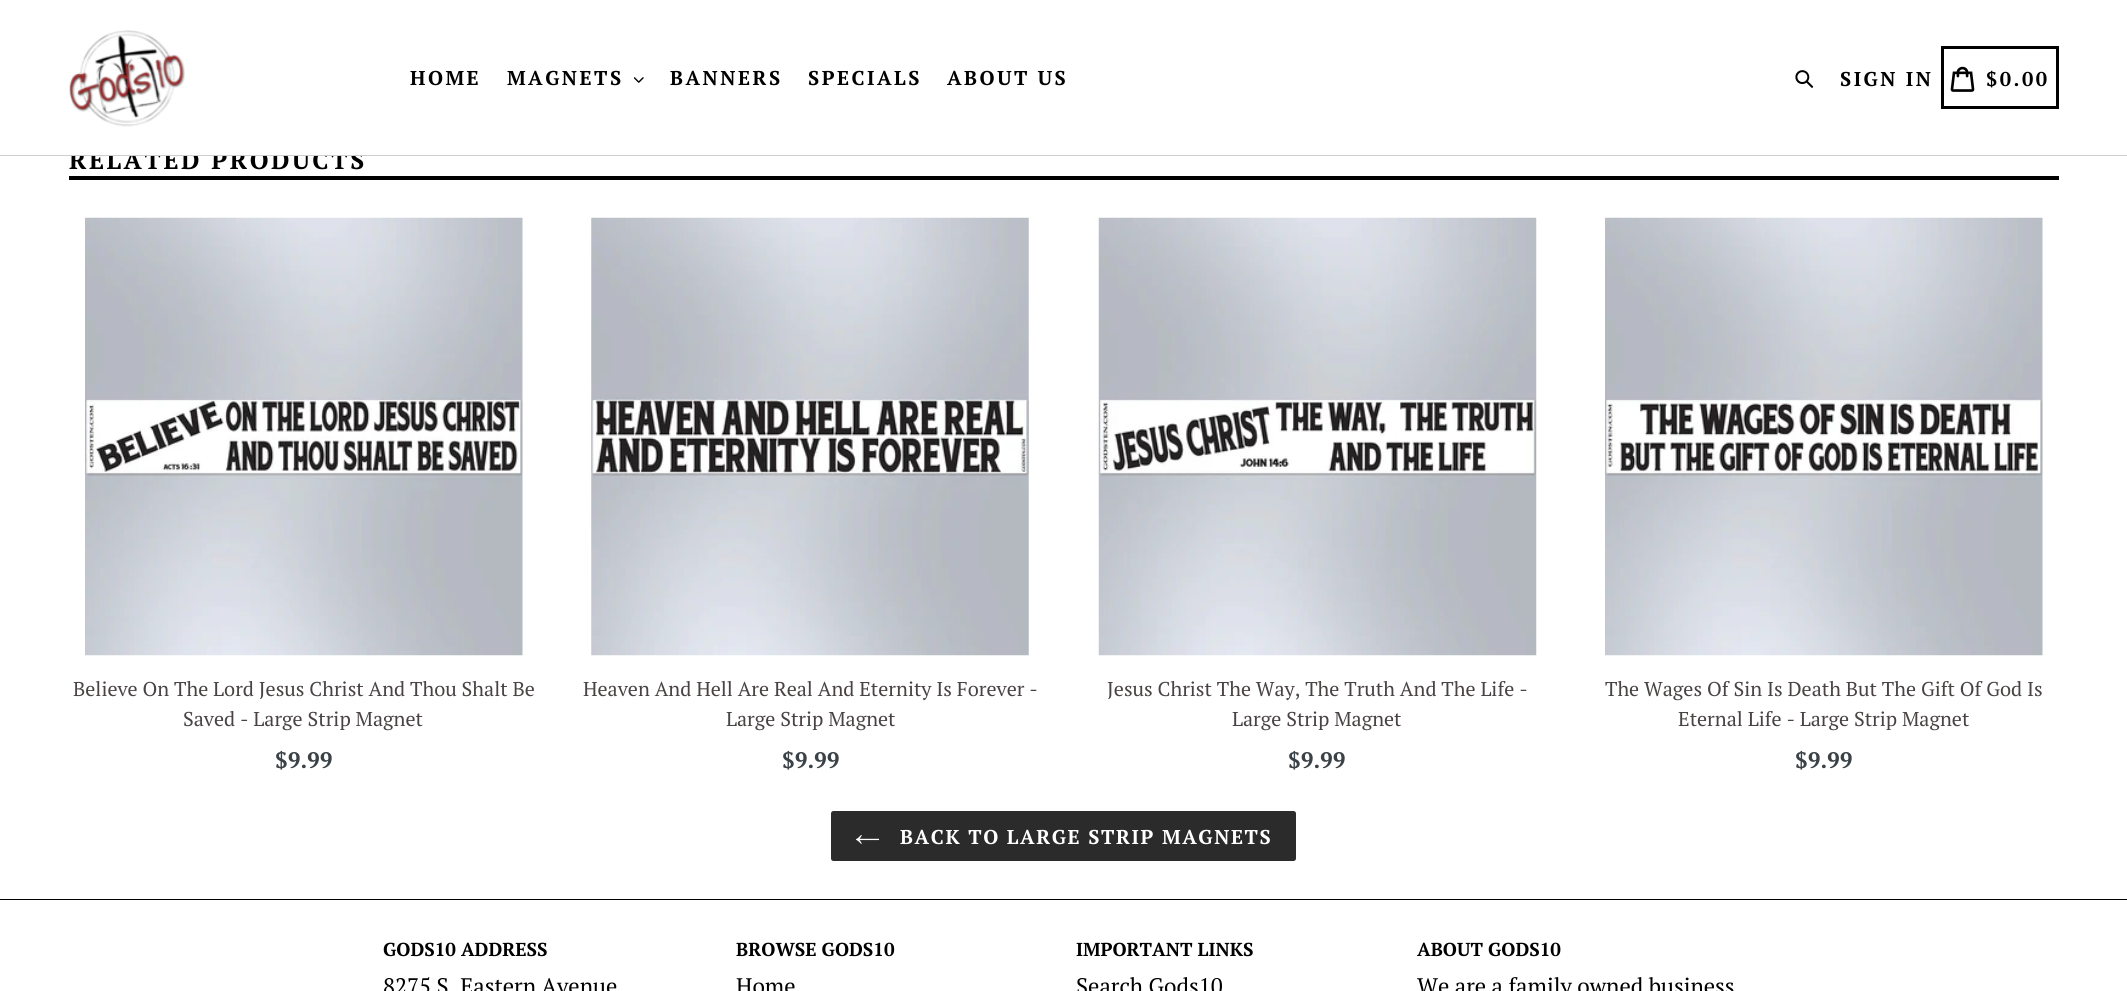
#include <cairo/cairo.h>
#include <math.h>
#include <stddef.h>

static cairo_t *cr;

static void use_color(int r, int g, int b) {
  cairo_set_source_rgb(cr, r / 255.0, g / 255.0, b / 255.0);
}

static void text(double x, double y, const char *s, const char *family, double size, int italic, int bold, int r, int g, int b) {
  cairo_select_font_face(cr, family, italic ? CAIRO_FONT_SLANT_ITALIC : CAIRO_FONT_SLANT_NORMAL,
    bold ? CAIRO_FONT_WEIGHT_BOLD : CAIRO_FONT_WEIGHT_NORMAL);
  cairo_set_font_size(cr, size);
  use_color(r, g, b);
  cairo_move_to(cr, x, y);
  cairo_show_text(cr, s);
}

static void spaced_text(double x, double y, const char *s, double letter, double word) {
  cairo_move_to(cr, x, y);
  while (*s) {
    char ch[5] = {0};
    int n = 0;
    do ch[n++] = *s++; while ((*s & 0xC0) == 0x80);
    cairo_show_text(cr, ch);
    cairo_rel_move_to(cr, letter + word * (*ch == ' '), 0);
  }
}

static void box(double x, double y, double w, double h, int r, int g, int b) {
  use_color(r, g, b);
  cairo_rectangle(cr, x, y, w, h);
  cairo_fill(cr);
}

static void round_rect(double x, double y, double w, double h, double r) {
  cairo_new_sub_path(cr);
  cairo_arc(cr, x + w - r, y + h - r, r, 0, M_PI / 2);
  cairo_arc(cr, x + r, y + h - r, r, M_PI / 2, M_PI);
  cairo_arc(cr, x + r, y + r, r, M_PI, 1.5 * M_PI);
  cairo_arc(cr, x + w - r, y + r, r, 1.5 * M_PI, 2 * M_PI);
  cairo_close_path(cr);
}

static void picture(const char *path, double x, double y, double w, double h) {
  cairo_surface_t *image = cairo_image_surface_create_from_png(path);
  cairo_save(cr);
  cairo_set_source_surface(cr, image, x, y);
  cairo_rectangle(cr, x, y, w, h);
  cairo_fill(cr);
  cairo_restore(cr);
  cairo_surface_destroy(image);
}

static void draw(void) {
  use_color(255, 255, 255);
  cairo_paint(cr);
  picture("img_01.png", 69, 30, 116, 97);
  picture("img_02.png", 634, 77, 10, 6);
  picture("img_03.png", 1795, 70, 19, 18);
  cairo_rectangle(cr, 1942.5, 47.5, 115, 60);
  use_color(0, 0, 0);
  cairo_set_line_width(cr, 3);
  cairo_stroke(cr);
  picture("img_04.png", 1950, 66, 25, 26);
  box(69, 176, 1990, 4, 0, 0, 0);
  picture("img_05.png", 85, 217, 438, 439);
  picture("img_06.png", 591, 217, 438, 439);
  picture("img_07.png", 1098, 217, 439, 439);
  picture("img_08.png", 1605, 217, 438, 439);
  use_color(43, 43, 43);
  round_rect(831, 811, 465, 50, 2.5);
  cairo_fill(cr);
  picture("img_09.png", 856, 835, 24, 9);
  box(0, 899, 2127, 1, 0, 0, 0);
  cairo_select_font_face(cr, "PT Serif", CAIRO_FONT_SLANT_NORMAL, CAIRO_FONT_WEIGHT_BOLD);
  cairo_set_font_size(cr, 20);
  spaced_text(410, 85, "HOME", 2.5, 0);
  spaced_text(507, 85, "MAGNETS", 2.5, 0);
  spaced_text(670, 85, "BANNERS", 2.5, 0);
  spaced_text(808, 85, "SPECIALS", 2.5, 0);
  spaced_text(947, 85, "ABOUT US", 2.5, 0);
  spaced_text(1840, 86, "SIGN IN", 2.5, 0);
  spaced_text(1986, 86, "$0.00", 2.5, 0);
  cairo_set_font_size(cr, 25);
  spaced_text(69, 169, "RELATED PRODUCTS", 2.5, 0);
  box(0, 155, 2127, 1, 207, 204, 204);
  box(69, 151, 294, 4, 255, 255, 255);
  text(73, 696, "Believe On The Lord Jesus Christ And Thou Shalt Be", "PT Serif", 20, 0, 0, 73, 67, 67);
  text(183, 726, "Saved - Large Strip Magnet", "PT Serif", 20, 0, 0, 73, 67, 67);
  text(275, 768, "$9.99", "PT Serif", 22.5, 0, 1, 58, 66, 71);
  text(583, 696, "Heaven And Hell Are Real And Eternity Is Forever -", "PT Serif", 20, 0, 0, 73, 67, 67);
  text(726, 726, "Large Strip Magnet", "PT Serif", 20, 0, 0, 73, 67, 67);
  text(782, 768, "$9.99", "PT Serif", 22.5, 0, 1, 58, 66, 71);
  text(1107, 696, "Jesus Christ The Way, The Truth And The Life -", "PT Serif", 20, 0, 0, 73, 67, 67);
  text(1232, 726, "Large Strip Magnet", "PT Serif", 20, 0, 0, 73, 67, 67);
  text(1288, 768, "$9.99", "PT Serif", 22.5, 0, 1, 58, 66, 71);
  text(1605, 696, "The Wages Of Sin Is Death But The Gift Of God Is", "PT Serif", 20, 0, 0, 73, 67, 67);
  text(1678, 726, "Eternal Life - Large Strip Magnet", "PT Serif", 20, 0, 0, 73, 67, 67);
  text(1795, 768, "$9.99", "PT Serif", 22.5, 0, 1, 58, 66, 71);
  cairo_set_font_size(cr, 20);
  use_color(255, 255, 255);
  spaced_text(900, 844, "BACK TO LARGE STRIP MAGNETS", 1.6, 0);
  text(383, 956, "GODS10 ADDRESS", "PT Serif", 18.75, 0, 1, 0, 0, 0);
  text(383, 994, "8275 S. Eastern Avenue", "PT Serif", 22.5, 0, 0, 0, 0, 0);
  text(736, 956, "BROWSE GODS10", "PT Serif", 18.75, 0, 1, 0, 0, 0);
  text(736, 994, "Home", "PT Serif", 22.5, 0, 0, 0, 0, 0);
  text(1076, 956, "IMPORTANT LINKS", "PT Serif", 18.75, 0, 1, 0, 0, 0);
  text(1076, 994, "Search Gods10", "PT Serif", 22.5, 0, 0, 0, 0, 0);
  text(1417, 956, "ABOUT GODS10", "PT Serif", 18.75, 0, 1, 0, 0, 0);
  text(1417, 994, "We are a family owned business", "PT Serif", 22.5, 0, 0, 0, 0, 0);
}

int main(void) {
  cairo_surface_t *surface = cairo_image_surface_create(CAIRO_FORMAT_RGB24, 2127, 991);
  cr = cairo_create(surface);
  cairo_font_options_t *options = cairo_font_options_create();
  cairo_font_options_set_hint_metrics(options, CAIRO_HINT_METRICS_OFF);
  cairo_font_options_set_hint_style(options, CAIRO_HINT_STYLE_NONE);
  cairo_set_font_options(cr, options);
  cairo_set_miter_limit(cr, 4);
  draw();
  cairo_surface_write_to_png(surface, "out.png");
  cairo_font_options_destroy(options);
  cairo_destroy(cr);
  cairo_surface_destroy(surface);
  return 0;
}
